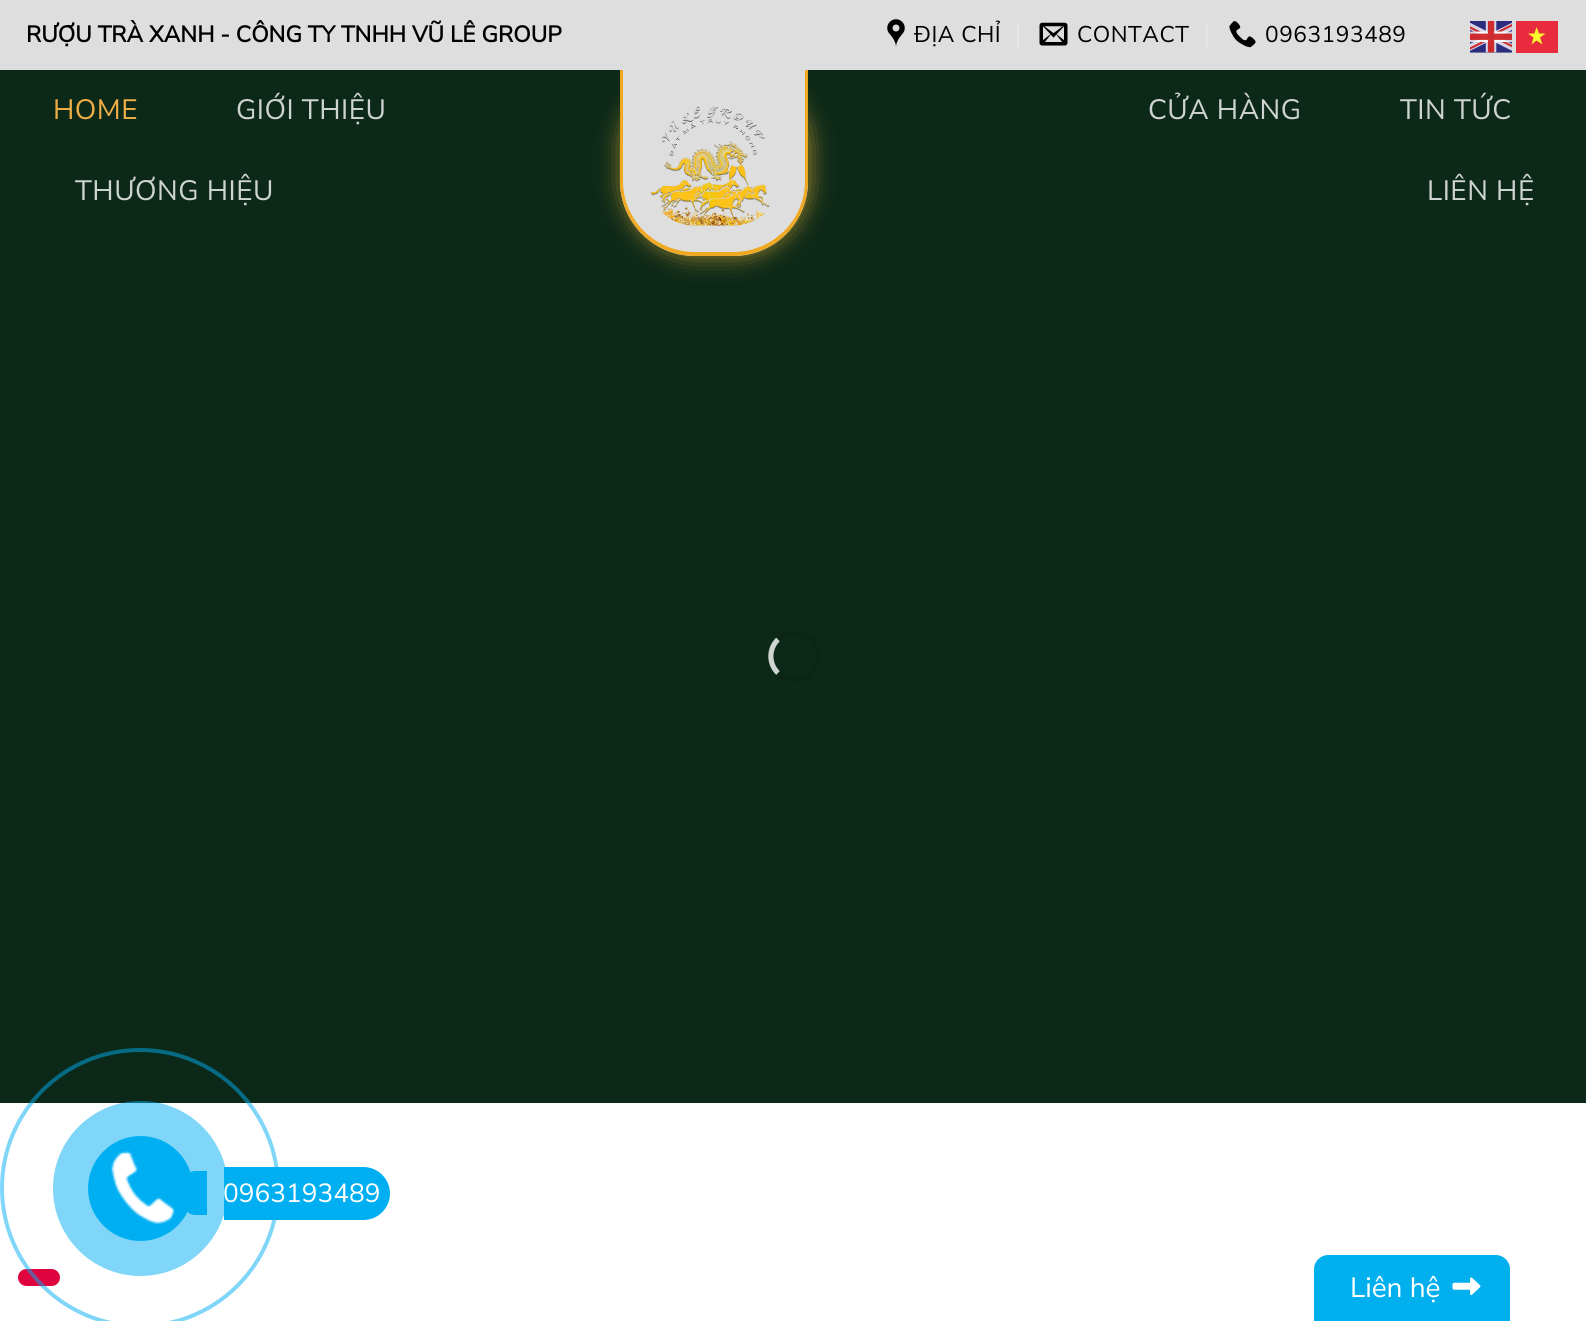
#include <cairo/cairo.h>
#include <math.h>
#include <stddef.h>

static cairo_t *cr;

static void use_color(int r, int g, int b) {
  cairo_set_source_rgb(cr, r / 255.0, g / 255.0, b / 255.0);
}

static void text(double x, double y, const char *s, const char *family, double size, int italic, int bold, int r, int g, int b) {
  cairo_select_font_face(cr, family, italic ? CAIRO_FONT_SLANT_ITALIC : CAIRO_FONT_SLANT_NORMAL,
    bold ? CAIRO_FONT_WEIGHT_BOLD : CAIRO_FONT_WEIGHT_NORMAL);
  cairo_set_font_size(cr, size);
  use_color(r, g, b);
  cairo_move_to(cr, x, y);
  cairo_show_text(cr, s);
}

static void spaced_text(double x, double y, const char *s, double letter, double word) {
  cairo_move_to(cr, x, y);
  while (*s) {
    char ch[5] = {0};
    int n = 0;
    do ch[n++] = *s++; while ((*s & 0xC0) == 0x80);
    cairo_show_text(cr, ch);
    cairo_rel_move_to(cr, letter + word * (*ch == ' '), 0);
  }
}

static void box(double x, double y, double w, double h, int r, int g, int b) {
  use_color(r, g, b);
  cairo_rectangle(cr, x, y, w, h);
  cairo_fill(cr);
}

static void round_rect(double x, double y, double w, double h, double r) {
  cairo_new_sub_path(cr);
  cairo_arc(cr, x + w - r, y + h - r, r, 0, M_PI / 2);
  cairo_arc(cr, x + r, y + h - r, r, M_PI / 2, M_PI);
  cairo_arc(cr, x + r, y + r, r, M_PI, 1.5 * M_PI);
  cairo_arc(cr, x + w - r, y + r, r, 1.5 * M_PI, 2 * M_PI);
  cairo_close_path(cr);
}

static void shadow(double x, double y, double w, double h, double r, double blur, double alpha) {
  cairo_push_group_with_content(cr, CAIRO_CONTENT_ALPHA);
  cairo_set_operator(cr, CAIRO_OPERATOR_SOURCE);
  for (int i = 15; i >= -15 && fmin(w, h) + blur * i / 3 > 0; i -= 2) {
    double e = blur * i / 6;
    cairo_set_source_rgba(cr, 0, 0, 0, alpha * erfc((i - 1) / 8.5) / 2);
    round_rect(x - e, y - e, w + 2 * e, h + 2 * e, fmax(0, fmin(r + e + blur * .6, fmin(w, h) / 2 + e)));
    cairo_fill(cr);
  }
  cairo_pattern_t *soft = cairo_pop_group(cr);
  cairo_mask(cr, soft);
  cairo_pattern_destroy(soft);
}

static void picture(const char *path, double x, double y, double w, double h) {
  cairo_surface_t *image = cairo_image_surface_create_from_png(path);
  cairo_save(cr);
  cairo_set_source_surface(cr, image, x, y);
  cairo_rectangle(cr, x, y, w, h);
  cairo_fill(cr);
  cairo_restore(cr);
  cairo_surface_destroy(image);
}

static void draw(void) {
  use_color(255, 255, 255);
  cairo_paint(cr);
  box(0, 70, 1586, 1033, 12, 40, 24);
  use_color(205, 164, 50);
  shadow(621, 72, 189, 185, 74, 11.5, 0.74);
  box(0, 0, 1586, 70, 222, 222, 222);
  picture("img_01.png", 887, 19, 18, 28);
  box(1017, 23, 2, 26, 229, 229, 229);
  picture("img_02.png", 1039, 22, 29, 24);
  box(1206, 23, 2, 26, 229, 229, 229);
  picture("img_03.png", 1229, 21, 27, 27);
  box(1439, 9, 2, 52, 225, 225, 225);
  picture("img_04.png", 1470, 21, 42, 32);
  box(1516, 21, 42, 32, 233, 44, 61);
  use_color(248, 248, 44);
  cairo_set_fill_rule(cr, CAIRO_FILL_RULE_EVEN_ODD);
  cairo_new_path(cr);
  cairo_move_to(cr, 1542.5, 44.5);
  cairo_line_to(cr, 1536.5, 40.5);
  cairo_line_to(cr, 1531.5, 44.5);
  cairo_line_to(cr, 1533.5, 37.5);
  cairo_line_to(cr, 1528, 33.5);
  cairo_line_to(cr, 1534.5, 33.5);
  cairo_line_to(cr, 1536.5, 27);
  cairo_line_to(cr, 1539, 33.5);
  cairo_line_to(cr, 1545.5, 33.5);
  cairo_line_to(cr, 1540, 37.5);
  cairo_close_path(cr);
  cairo_fill(cr);
  use_color(222, 222, 222);
  cairo_set_fill_rule(cr, CAIRO_FILL_RULE_WINDING);
  cairo_new_path(cr);
  cairo_move_to(cr, 620, 70);
  cairo_line_to(cr, 808, 70);
  cairo_line_to(cr, 808, 181);
  cairo_curve_to(cr, 808, 222, 775, 256, 733, 256);
  cairo_line_to(cr, 695, 256);
  cairo_curve_to(cr, 653, 256, 620, 222, 620, 181);
  cairo_close_path(cr);
  cairo_fill(cr);
  use_color(239, 169, 33);
  cairo_set_fill_rule(cr, CAIRO_FILL_RULE_EVEN_ODD);
  cairo_new_path(cr);
  cairo_move_to(cr, 620, 70);
  cairo_line_to(cr, 808, 70);
  cairo_line_to(cr, 808, 181);
  cairo_curve_to(cr, 808, 222, 775, 256, 733, 256);
  cairo_line_to(cr, 695, 256);
  cairo_curve_to(cr, 653, 256, 620, 222, 620, 181);
  cairo_close_path(cr);
  cairo_move_to(cr, 623, 70);
  cairo_line_to(cr, 805, 70);
  cairo_line_to(cr, 805, 181);
  cairo_curve_to(cr, 805, 220, 773, 252, 733, 252);
  cairo_line_to(cr, 695, 252);
  cairo_curve_to(cr, 655, 252, 623, 220, 623, 181);
  cairo_close_path(cr);
  cairo_fill(cr);
  picture("img_05.png", 650, 106, 120, 120);
  cairo_new_path(cr);
  cairo_move_to(cr, 778, 639.5);
  cairo_curve_to(cr, 783.5, 634, 791.5, 631.5, 799, 633);
  cairo_curve_to(cr, 826.5, 638.5, 822.5, 680, 794.5, 680);
  cairo_curve_to(cr, 788.5, 680, 782, 677.5, 778, 673);
  use_color(11, 37, 22);
  cairo_set_line_width(cr, 5.2);
  cairo_stroke(cr);
  cairo_new_path(cr);
  cairo_move_to(cr, 778, 673);
  cairo_curve_to(cr, 768.5, 664, 768.5, 648.5, 778, 639.5);
  use_color(206, 212, 209);
  cairo_stroke(cr);
  use_color(223, 4, 62);
  round_rect(18, 1269, 42, 17, 8.5);
  cairo_fill(cr);
  cairo_arc(cr, 140, 1188, 138, 0, 2 * M_PI);
  cairo_set_source_rgba(cr, 0, 0.686, 0.949, 0.5);
  cairo_set_line_width(cr, 4);
  cairo_stroke(cr);
  cairo_arc(cr, 140.5, 1188.5, 87.5, 0, 2 * M_PI);
  cairo_fill(cr);
  use_color(0, 175, 242);
  cairo_arc(cr, 140.5, 1188.5, 52.5, 0, 2 * M_PI);
  cairo_fill(cr);
  picture("img_06.png", 111, 1151, 64, 73);
  cairo_new_path(cr);
  cairo_move_to(cr, 195.5, 1171);
  cairo_line_to(cr, 207, 1171);
  cairo_line_to(cr, 207, 1215);
  cairo_line_to(cr, 195.5, 1215);
  cairo_curve_to(cr, 189, 1215, 184, 1210, 184, 1203.5);
  cairo_line_to(cr, 184, 1182.5);
  cairo_curve_to(cr, 184, 1176, 189, 1171, 195.5, 1171);
  cairo_close_path(cr);
  cairo_fill(cr);
  cairo_new_path(cr);
  cairo_move_to(cr, 224, 1167);
  cairo_line_to(cr, 363.5, 1167);
  cairo_curve_to(cr, 378, 1167, 390, 1179, 390, 1193.5);
  cairo_curve_to(cr, 390, 1208, 378, 1220, 363.5, 1220);
  cairo_line_to(cr, 224, 1220);
  cairo_close_path(cr);
  cairo_fill(cr);
  use_color(0, 175, 238);
  cairo_new_path(cr);
  cairo_move_to(cr, 1328, 1255);
  cairo_line_to(cr, 1496, 1255);
  cairo_curve_to(cr, 1503.5, 1255, 1510, 1261.5, 1510, 1269);
  cairo_line_to(cr, 1510, 1321);
  cairo_line_to(cr, 1314, 1321);
  cairo_line_to(cr, 1314, 1269);
  cairo_curve_to(cr, 1314, 1261.5, 1320.5, 1255, 1328, 1255);
  cairo_close_path(cr);
  cairo_fill(cr);
  picture("img_07.png", 1452, 1277, 29, 18);
  text(26, 42, "RƯỢU TRÀ XANH - CÔNG TY TNHH VŨ LÊ GROUP", "Nunito Sans", 22.75, 0, 1, 0, 0, 0);
  cairo_select_font_face(cr, "Nunito Sans ExtraLight", CAIRO_FONT_SLANT_NORMAL, CAIRO_FONT_WEIGHT_NORMAL);
  spaced_text(914, 42, "ĐỊA CHỈ", 0.5, 0);
  spaced_text(1077, 42, "CONTACT", 0.5, 0);
  spaced_text(1265, 42, "0963193489", 0.5, 0);
  cairo_set_font_size(cr, 28);
  use_color(238, 174, 69);
  spaced_text(53, 119, "HOME", 0.5, 0);
  use_color(206, 212, 209);
  spaced_text(236, 119, "GIỚI THIỆU", 0.5, 0);
  spaced_text(75, 200, "THƯƠNG HIỆU", 0.5, 0);
  spaced_text(1148, 119, "CỬA HÀNG", 0.5, 0);
  spaced_text(1400, 119, "TIN TỨC", 0.5, 0);
  spaced_text(1427, 200, "LIÊN HỆ", 0.5, 0);
  text(223, 1202, "0963193489", "Nunito Sans ExtraLight", 26.25, 0, 0, 255, 255, 255);
  text(1350, 1297, "Liên hệ", "Nunito Sans ExtraLight", 28, 0, 0, 255, 255, 255);
}

int main(void) {
  cairo_surface_t *surface = cairo_image_surface_create(CAIRO_FORMAT_RGB24, 1586, 1321);
  cr = cairo_create(surface);
  cairo_font_options_t *options = cairo_font_options_create();
  cairo_font_options_set_hint_metrics(options, CAIRO_HINT_METRICS_OFF);
  cairo_font_options_set_hint_style(options, CAIRO_HINT_STYLE_NONE);
  cairo_set_font_options(cr, options);
  cairo_set_miter_limit(cr, 4);
  draw();
  cairo_surface_write_to_png(surface, "out.png");
  cairo_font_options_destroy(options);
  cairo_destroy(cr);
  cairo_surface_destroy(surface);
  return 0;
}
